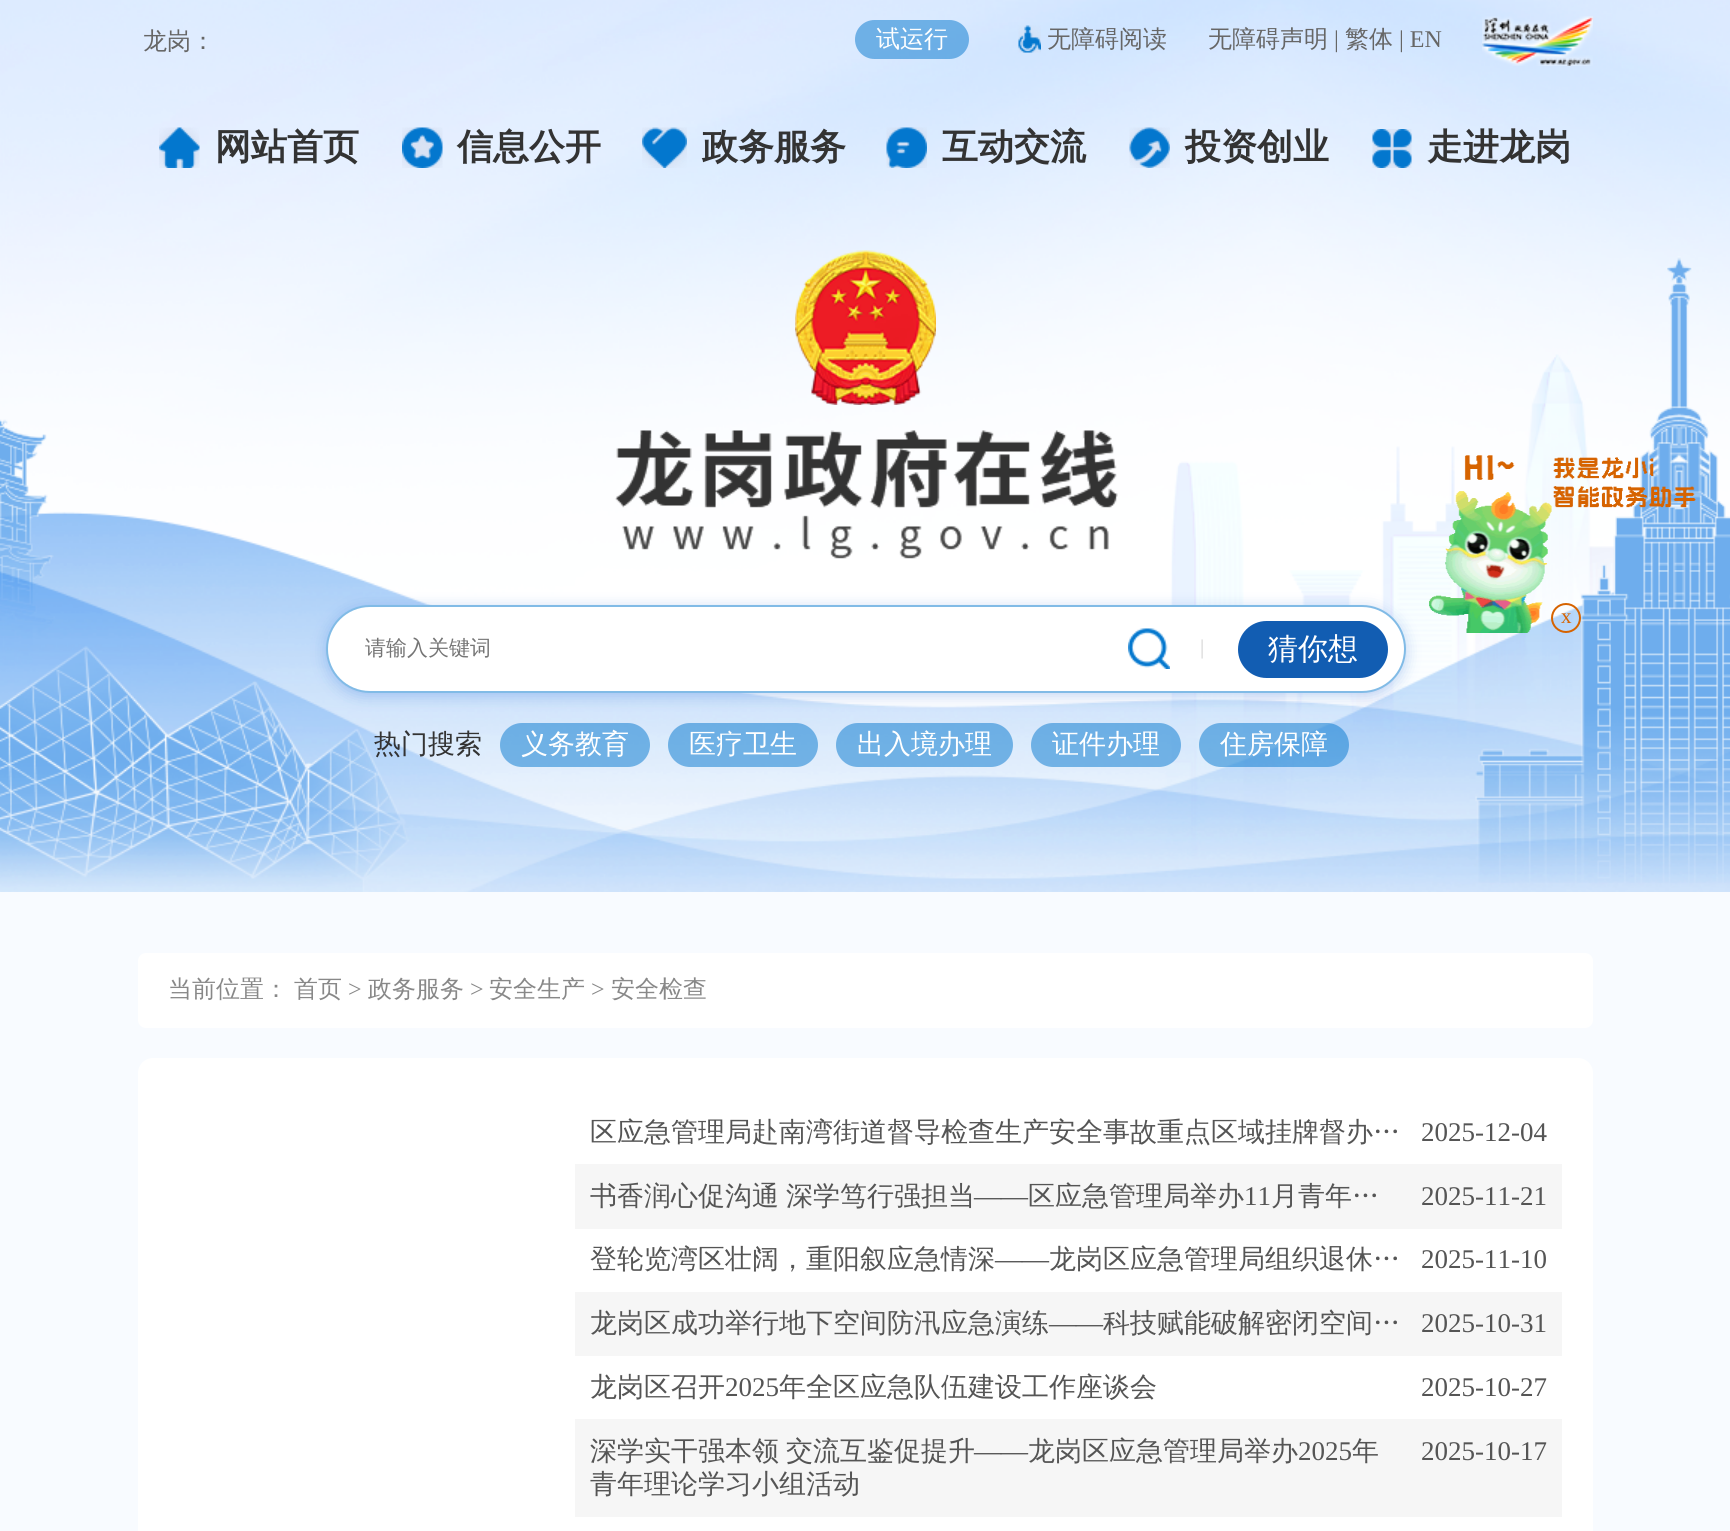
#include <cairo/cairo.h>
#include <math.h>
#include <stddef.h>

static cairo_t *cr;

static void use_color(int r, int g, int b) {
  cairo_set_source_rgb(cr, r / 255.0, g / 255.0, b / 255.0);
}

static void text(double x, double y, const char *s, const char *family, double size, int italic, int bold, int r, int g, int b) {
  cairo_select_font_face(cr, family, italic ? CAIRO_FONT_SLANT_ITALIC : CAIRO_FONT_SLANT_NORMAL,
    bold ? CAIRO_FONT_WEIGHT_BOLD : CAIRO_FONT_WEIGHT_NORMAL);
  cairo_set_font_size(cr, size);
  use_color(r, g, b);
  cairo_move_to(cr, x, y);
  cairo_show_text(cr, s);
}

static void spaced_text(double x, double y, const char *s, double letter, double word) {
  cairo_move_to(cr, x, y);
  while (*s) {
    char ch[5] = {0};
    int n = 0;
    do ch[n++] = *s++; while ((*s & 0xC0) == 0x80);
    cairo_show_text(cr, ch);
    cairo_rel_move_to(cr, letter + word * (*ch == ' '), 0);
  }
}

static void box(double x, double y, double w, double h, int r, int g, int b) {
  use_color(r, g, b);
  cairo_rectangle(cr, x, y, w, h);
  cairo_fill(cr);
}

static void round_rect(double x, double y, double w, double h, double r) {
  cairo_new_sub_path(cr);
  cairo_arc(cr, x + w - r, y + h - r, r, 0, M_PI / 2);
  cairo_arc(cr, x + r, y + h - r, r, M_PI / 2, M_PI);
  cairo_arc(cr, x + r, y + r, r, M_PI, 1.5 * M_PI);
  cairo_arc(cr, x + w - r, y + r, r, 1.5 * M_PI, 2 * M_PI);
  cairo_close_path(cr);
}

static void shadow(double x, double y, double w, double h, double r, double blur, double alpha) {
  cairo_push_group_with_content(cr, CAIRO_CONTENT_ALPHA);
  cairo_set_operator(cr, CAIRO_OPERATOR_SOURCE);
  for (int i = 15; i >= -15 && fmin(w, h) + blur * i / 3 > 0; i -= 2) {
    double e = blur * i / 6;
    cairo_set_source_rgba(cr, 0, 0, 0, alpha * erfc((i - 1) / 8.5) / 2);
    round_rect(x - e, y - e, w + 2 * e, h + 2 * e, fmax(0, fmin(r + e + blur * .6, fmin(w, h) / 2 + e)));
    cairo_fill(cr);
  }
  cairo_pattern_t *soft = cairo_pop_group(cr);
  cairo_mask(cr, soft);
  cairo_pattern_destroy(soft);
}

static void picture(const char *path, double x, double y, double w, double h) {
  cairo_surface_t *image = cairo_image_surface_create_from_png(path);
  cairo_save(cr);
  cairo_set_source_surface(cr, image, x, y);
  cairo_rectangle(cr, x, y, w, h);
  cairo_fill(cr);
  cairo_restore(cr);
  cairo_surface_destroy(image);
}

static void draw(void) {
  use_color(255, 255, 255);
  cairo_paint(cr);
  picture("img_01.png", 0, 0, 1730, 892);
  cairo_set_source_rgba(cr, 0.012, 0.467, 0.808, 0.5);
  round_rect(855, 20, 114, 39, 19.5);
  cairo_fill(cr);
  picture("img_02.png", 1018, 25, 23, 28);
  picture("img_03.png", 1482, 16, 111, 50);
  picture("img_04.png", 159, 127, 41, 41);
  picture("img_05.png", 402, 127, 41, 41);
  picture("img_06.png", 642, 127, 45, 41);
  picture("img_07.png", 886, 127, 41, 41);
  picture("img_08.png", 1129, 127, 41, 41);
  picture("img_09.png", 1372, 129, 40, 39);
  picture("img_10.png", 795, 250, 141, 155);
  picture("img_11.png", 615, 430, 503, 129);
  use_color(47, 114, 218);
  shadow(326, 608, 1080, 88, 44, 7.5, 0.3);
  use_color(255, 255, 255);
  round_rect(327, 606, 1078, 86, 43);
  cairo_fill_preserve(cr);
  use_color(129, 187, 230);
  cairo_stroke(cr);
  picture("img_12.png", 1128, 628, 42, 41);
  use_color(18, 93, 178);
  round_rect(1238, 621, 150, 57, 28.5);
  cairo_fill(cr);
  cairo_set_source_rgba(cr, 0.012, 0.467, 0.808, 0.5);
  round_rect(500, 723, 150, 44, 22);
  cairo_fill(cr);
  round_rect(668, 723, 150, 44, 22);
  cairo_fill(cr);
  round_rect(836, 723, 177, 44, 22);
  cairo_fill(cr);
  round_rect(1031, 723, 150, 44, 22);
  cairo_fill(cr);
  round_rect(1199, 723, 150, 44, 22);
  cairo_fill(cr);
  picture("img_13.png", 1429, 455, 267, 178);
  cairo_arc(cr, 1566, 618, 14, 0, 2 * M_PI);
  use_color(214, 99, 0);
  cairo_stroke(cr);
  box(0, 892, 1730, 639, 248, 251, 255);
  use_color(255, 255, 255);
  round_rect(138, 953, 1455, 75, 8);
  cairo_fill(cr);
  round_rect(138, 1058, 1455, 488, 15);
  cairo_fill(cr);
  box(575, 1164, 987, 65, 246, 246, 246);
  box(575, 1292, 987, 64, 246, 246, 246);
  box(575, 1419, 987, 98, 246, 246, 246);
  text(143, 49, "龙岗：", "WenQuanYi Zen Hei Medium", 24, 0, 0, 102, 102, 102);
  text(876, 47, "试运行", "WenQuanYi Zen Hei Medium", 24, 0, 0, 255, 255, 255);
  text(1047, 47, "无障碍阅读", "WenQuanYi Zen Hei Medium", 24, 0, 0, 102, 102, 102);
  text(1208, 47, "无障碍声明", "WenQuanYi Zen Hei Medium", 24, 0, 0, 102, 102, 102);
  text(1334, 47, "|", "Liberation Serif", 24, 0, 0, 102, 102, 102);
  text(1345, 47, "繁体", "WenQuanYi Zen Hei Medium", 24, 0, 0, 102, 102, 102);
  text(1399, 47, "| EN", "Liberation Serif", 24, 0, 0, 102, 102, 102);
  text(215, 159, "网站首页", "WenQuanYi Zen Hei", 36, 0, 1, 51, 51, 51);
  text(457, 159, "信息公开", "WenQuanYi Zen Hei", 36, 0, 1, 51, 51, 51);
  text(702, 159, "政务服务", "WenQuanYi Zen Hei", 36, 0, 1, 51, 51, 51);
  text(942, 159, "互动交流", "WenQuanYi Zen Hei", 36, 0, 1, 51, 51, 51);
  text(1185, 159, "投资创业", "WenQuanYi Zen Hei", 36, 0, 1, 51, 51, 51);
  text(1427, 159, "走进龙岗", "WenQuanYi Zen Hei", 36, 0, 1, 51, 51, 51);
  text(365, 655, "请输入关键词", "WenQuanYi Zen Hei Medium", 21, 0, 0, 117, 117, 117);
  text(1200, 654, "|", "Liberation Serif", 21, 0, 0, 210, 210, 210);
  text(1268, 659, "猜你想", "WenQuanYi Zen Hei Medium", 30, 0, 0, 255, 255, 255);
  text(374, 753, "热门搜索", "WenQuanYi Zen Hei Medium", 27, 0, 0, 51, 51, 51);
  text(521, 753, "义务教育", "WenQuanYi Zen Hei Medium", 27, 0, 0, 255, 255, 255);
  text(689, 753, "医疗卫生", "WenQuanYi Zen Hei Medium", 27, 0, 0, 255, 255, 255);
  text(857, 753, "出入境办理", "WenQuanYi Zen Hei Medium", 27, 0, 0, 255, 255, 255);
  text(1052, 753, "证件办理", "WenQuanYi Zen Hei Medium", 27, 0, 0, 255, 255, 255);
  text(1220, 753, "住房保障", "WenQuanYi Zen Hei Medium", 27, 0, 0, 255, 255, 255);
  text(1561, 623, "x", "Liberation Serif", 21, 0, 0, 214, 99, 0);
  text(168, 997, "当前位置：", "WenQuanYi Zen Hei Medium", 24, 0, 0, 136, 136, 136);
  text(294, 997, "首页", "WenQuanYi Zen Hei Medium", 24, 0, 0, 136, 136, 136);
  text(348, 997, ">", "Liberation Serif", 24, 0, 0, 136, 136, 136);
  text(368, 997, "政务服务", "WenQuanYi Zen Hei Medium", 24, 0, 0, 136, 136, 136);
  text(470, 997, ">", "Liberation Serif", 24, 0, 0, 136, 136, 136);
  text(489, 997, "安全生产", "WenQuanYi Zen Hei Medium", 24, 0, 0, 136, 136, 136);
  text(591, 997, ">", "Liberation Serif", 24, 0, 0, 136, 136, 136);
  text(611, 997, "安全检查", "WenQuanYi Zen Hei Medium", 24, 0, 0, 136, 136, 136);
  text(590, 1141, "区应急管理局赴南湾街道督导检查生产安全事故重点区域挂牌督办…", "WenQuanYi Zen Hei Medium", 27, 0, 0, 85, 85, 85);
  text(1421, 1141, "2025-12-04", "Liberation Serif", 27, 0, 0, 85, 85, 85);
  cairo_select_font_face(cr, "WenQuanYi Zen Hei Medium", CAIRO_FONT_SLANT_NORMAL, CAIRO_FONT_WEIGHT_NORMAL);
  spaced_text(590, 1205, "书香润心促沟通 深学笃行强担当", 0, -1);
  text(974, 1205, "——", "Liberation Serif", 27, 0, 0, 85, 85, 85);
  text(1028, 1205, "区应急管理局举办", "WenQuanYi Zen Hei Medium", 27, 0, 0, 85, 85, 85);
  text(1244, 1205, "11", "Liberation Serif", 27, 0, 0, 85, 85, 85);
  text(1271, 1205, "月青年…", "WenQuanYi Zen Hei Medium", 27, 0, 0, 85, 85, 85);
  text(1421, 1205, "2025-11-21", "Liberation Serif", 27, 0, 0, 85, 85, 85);
  text(590, 1268, "登轮览湾区壮阔，重阳叙应急情深", "WenQuanYi Zen Hei Medium", 27, 0, 0, 85, 85, 85);
  text(995, 1268, "——", "Liberation Serif", 27, 0, 0, 85, 85, 85);
  text(1049, 1268, "龙岗区应急管理局组织退休…", "WenQuanYi Zen Hei Medium", 27, 0, 0, 85, 85, 85);
  text(1421, 1268, "2025-11-10", "Liberation Serif", 27, 0, 0, 85, 85, 85);
  text(590, 1332, "龙岗区成功举行地下空间防汛应急演练", "WenQuanYi Zen Hei Medium", 27, 0, 0, 85, 85, 85);
  text(1049, 1332, "——", "Liberation Serif", 27, 0, 0, 85, 85, 85);
  text(1103, 1332, "科技赋能破解密闭空间…", "WenQuanYi Zen Hei Medium", 27, 0, 0, 85, 85, 85);
  text(1421, 1332, "2025-10-31", "Liberation Serif", 27, 0, 0, 85, 85, 85);
  text(590, 1396, "龙岗区召开", "WenQuanYi Zen Hei Medium", 27, 0, 0, 85, 85, 85);
  text(725, 1396, "2025", "Liberation Serif", 27, 0, 0, 85, 85, 85);
  text(779, 1396, "年全区应急队伍建设工作座谈会", "WenQuanYi Zen Hei Medium", 27, 0, 0, 85, 85, 85);
  text(1421, 1396, "2025-10-27", "Liberation Serif", 27, 0, 0, 85, 85, 85);
  cairo_select_font_face(cr, "WenQuanYi Zen Hei Medium", CAIRO_FONT_SLANT_NORMAL, CAIRO_FONT_WEIGHT_NORMAL);
  spaced_text(590, 1460, "深学实干强本领 交流互鉴促提升", 0, -1);
  text(974, 1460, "——", "Liberation Serif", 27, 0, 0, 85, 85, 85);
  text(1028, 1460, "龙岗区应急管理局举办", "WenQuanYi Zen Hei Medium", 27, 0, 0, 85, 85, 85);
  text(1298, 1460, "2025", "Liberation Serif", 27, 0, 0, 85, 85, 85);
  text(1352, 1460, "年", "WenQuanYi Zen Hei Medium", 27, 0, 0, 85, 85, 85);
  text(590, 1493, "青年理论学习小组活动", "WenQuanYi Zen Hei Medium", 27, 0, 0, 85, 85, 85);
  text(1421, 1460, "2025-10-17", "Liberation Serif", 27, 0, 0, 85, 85, 85);
}

int main(void) {
  cairo_surface_t *surface = cairo_image_surface_create(CAIRO_FORMAT_RGB24, 1730, 1531);
  cr = cairo_create(surface);
  cairo_font_options_t *options = cairo_font_options_create();
  cairo_font_options_set_hint_metrics(options, CAIRO_HINT_METRICS_OFF);
  cairo_font_options_set_hint_style(options, CAIRO_HINT_STYLE_NONE);
  cairo_set_font_options(cr, options);
  cairo_set_miter_limit(cr, 4);
  draw();
  cairo_surface_write_to_png(surface, "out.png");
  cairo_font_options_destroy(options);
  cairo_destroy(cr);
  cairo_surface_destroy(surface);
  return 0;
}
